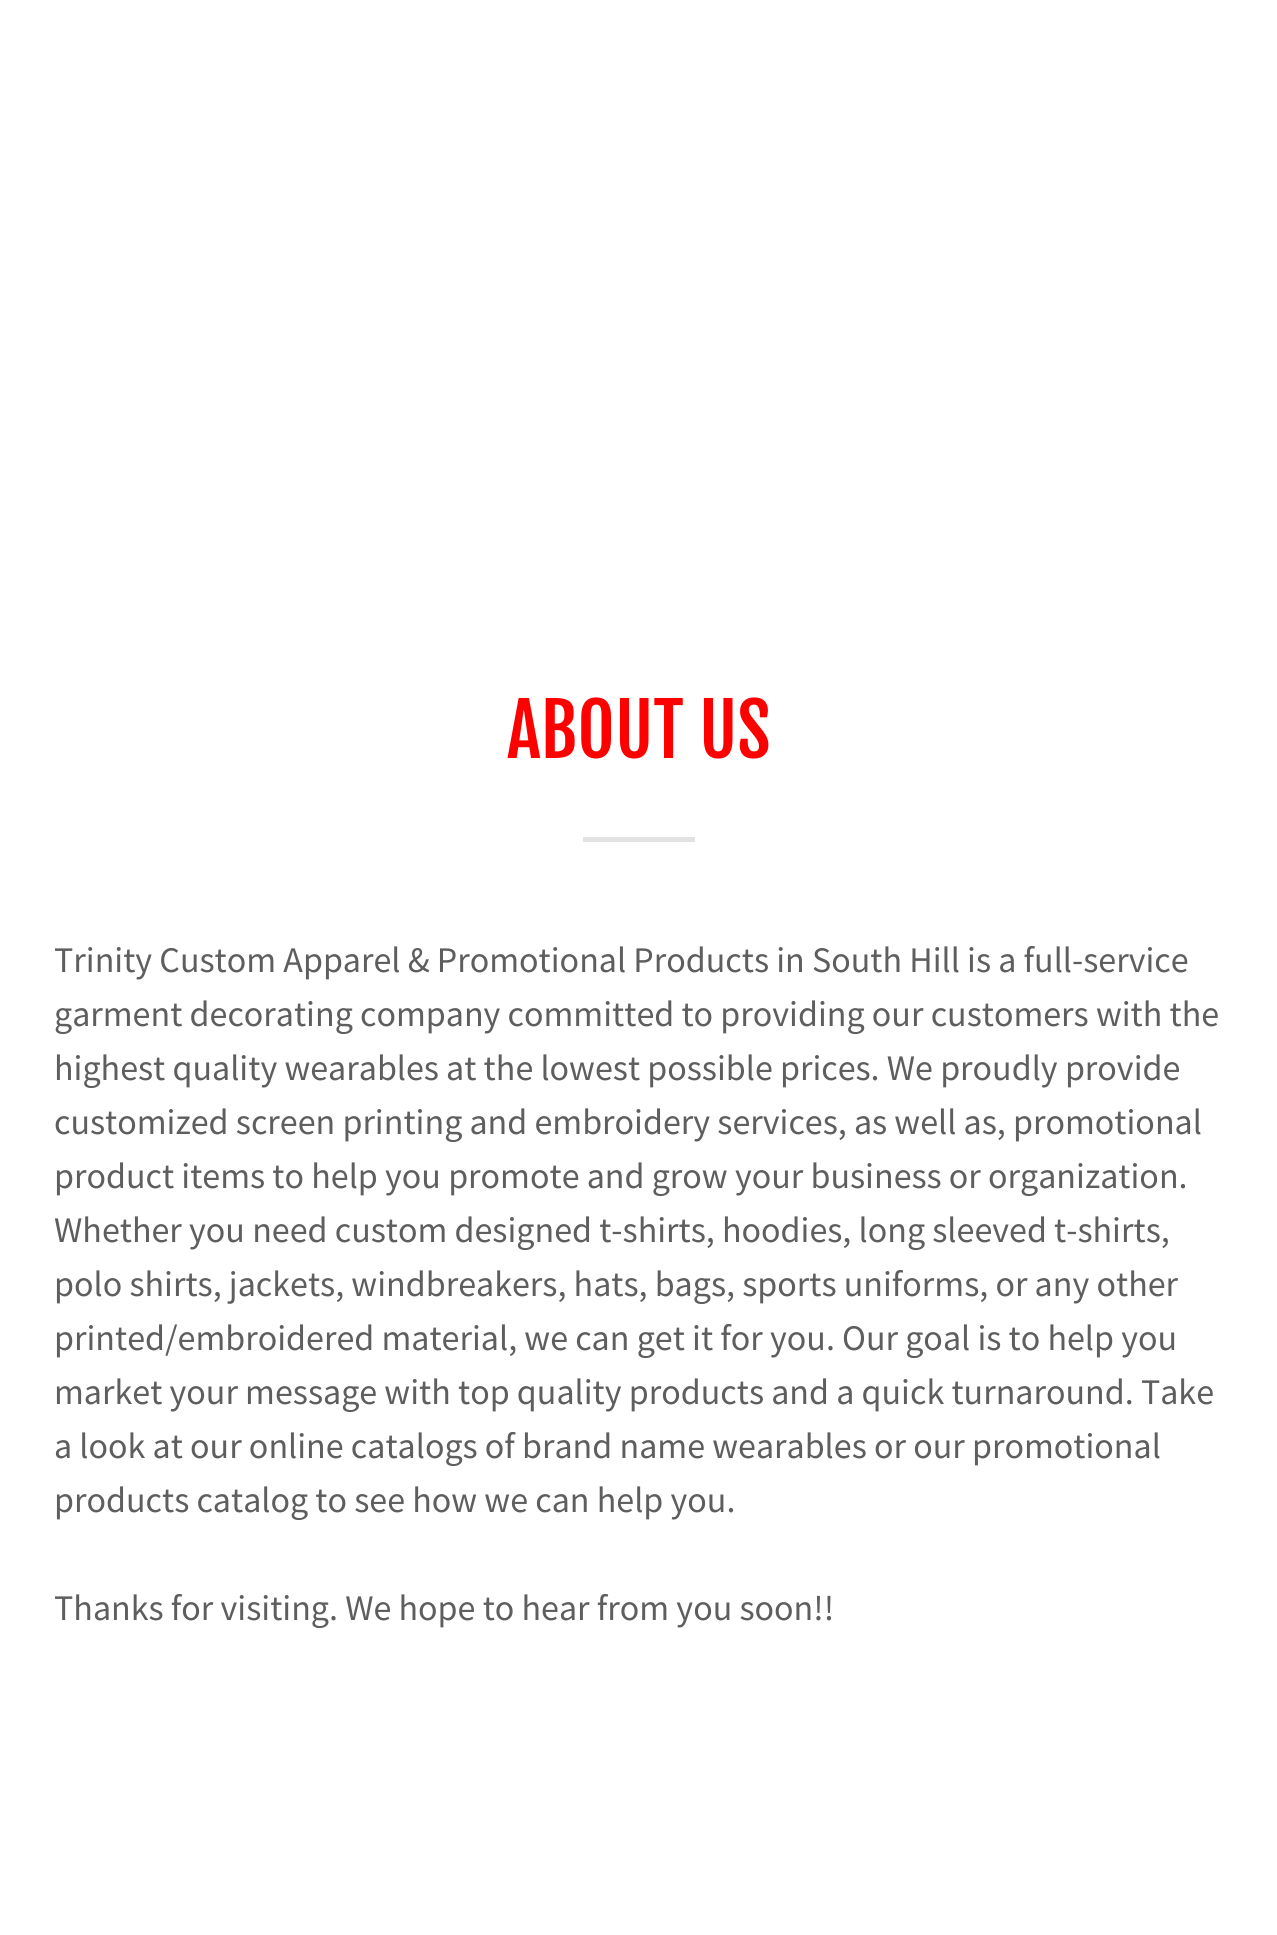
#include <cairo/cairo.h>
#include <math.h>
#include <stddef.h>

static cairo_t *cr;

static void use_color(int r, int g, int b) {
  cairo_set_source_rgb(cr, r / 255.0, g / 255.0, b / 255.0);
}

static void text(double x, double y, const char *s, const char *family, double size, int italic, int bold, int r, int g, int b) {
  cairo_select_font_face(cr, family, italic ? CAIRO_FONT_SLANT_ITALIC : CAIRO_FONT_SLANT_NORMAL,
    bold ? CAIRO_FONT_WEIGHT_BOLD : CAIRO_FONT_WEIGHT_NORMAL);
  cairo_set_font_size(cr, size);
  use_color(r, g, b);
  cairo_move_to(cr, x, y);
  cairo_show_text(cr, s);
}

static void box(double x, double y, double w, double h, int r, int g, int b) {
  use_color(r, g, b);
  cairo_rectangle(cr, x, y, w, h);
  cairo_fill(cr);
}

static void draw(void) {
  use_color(255, 255, 255);
  cairo_paint(cr);
  box(583, 837, 112, 5, 226, 226, 226);
  text(507, 758, "ABOUT US", "Fjalla One", 72, 0, 0, 253, 0, 0);
  text(54, 972, "Trinity Custom Apparel & Promotional Products in South Hill is a full-service", "Source Sans Pro", 36, 0, 0, 94, 94, 94);
  text(54, 1026, "garment decorating company committed to providing our customers with the", "Source Sans Pro", 36, 0, 0, 94, 94, 94);
  text(54, 1080, "highest quality wearables at the lowest possible prices. We proudly provide", "Source Sans Pro", 36, 0, 0, 94, 94, 94);
  text(54, 1134, "customized screen printing and embroidery services, as well as, promotional", "Source Sans Pro", 36, 0, 0, 94, 94, 94);
  text(54, 1188, "product items to help you promote and grow your business or organization.", "Source Sans Pro", 36, 0, 0, 94, 94, 94);
  text(54, 1242, "Whether you need custom designed t-shirts, hoodies, long sleeved t-shirts,", "Source Sans Pro", 36, 0, 0, 94, 94, 94);
  text(54, 1296, "polo shirts, jackets, windbreakers, hats, bags, sports uniforms, or any other", "Source Sans Pro", 36, 0, 0, 94, 94, 94);
  text(54, 1350, "printed/embroidered material, we can get it for you. Our goal is to help you", "Source Sans Pro", 36, 0, 0, 94, 94, 94);
  text(54, 1404, "market your message with top quality products and a quick turnaround. Take", "Source Sans Pro", 36, 0, 0, 94, 94, 94);
  text(54, 1458, "a look at our online catalogs of brand name wearables or our promotional", "Source Sans Pro", 36, 0, 0, 94, 94, 94);
  text(54, 1512, "products catalog to see how we can help you.", "Source Sans Pro", 36, 0, 0, 94, 94, 94);
  text(54, 1620, "Thanks for visiting. We hope to hear from you soon!!", "Source Sans Pro", 36, 0, 0, 94, 94, 94);
}

int main(void) {
  cairo_surface_t *surface = cairo_image_surface_create(CAIRO_FORMAT_RGB24, 1277, 1935);
  cr = cairo_create(surface);
  cairo_font_options_t *options = cairo_font_options_create();
  cairo_font_options_set_hint_metrics(options, CAIRO_HINT_METRICS_OFF);
  cairo_font_options_set_hint_style(options, CAIRO_HINT_STYLE_NONE);
  cairo_set_font_options(cr, options);
  cairo_set_miter_limit(cr, 4);
  draw();
  cairo_surface_write_to_png(surface, "out.png");
  cairo_font_options_destroy(options);
  cairo_destroy(cr);
  cairo_surface_destroy(surface);
  return 0;
}
